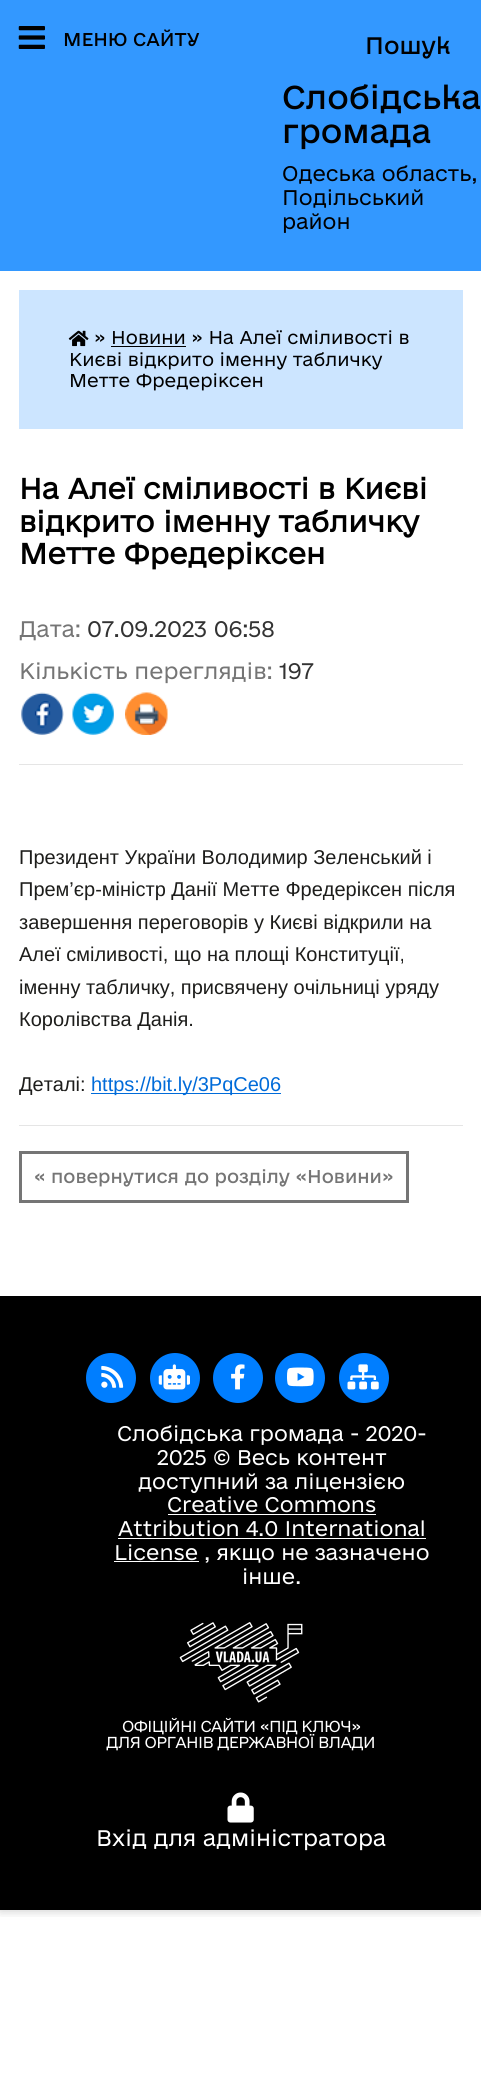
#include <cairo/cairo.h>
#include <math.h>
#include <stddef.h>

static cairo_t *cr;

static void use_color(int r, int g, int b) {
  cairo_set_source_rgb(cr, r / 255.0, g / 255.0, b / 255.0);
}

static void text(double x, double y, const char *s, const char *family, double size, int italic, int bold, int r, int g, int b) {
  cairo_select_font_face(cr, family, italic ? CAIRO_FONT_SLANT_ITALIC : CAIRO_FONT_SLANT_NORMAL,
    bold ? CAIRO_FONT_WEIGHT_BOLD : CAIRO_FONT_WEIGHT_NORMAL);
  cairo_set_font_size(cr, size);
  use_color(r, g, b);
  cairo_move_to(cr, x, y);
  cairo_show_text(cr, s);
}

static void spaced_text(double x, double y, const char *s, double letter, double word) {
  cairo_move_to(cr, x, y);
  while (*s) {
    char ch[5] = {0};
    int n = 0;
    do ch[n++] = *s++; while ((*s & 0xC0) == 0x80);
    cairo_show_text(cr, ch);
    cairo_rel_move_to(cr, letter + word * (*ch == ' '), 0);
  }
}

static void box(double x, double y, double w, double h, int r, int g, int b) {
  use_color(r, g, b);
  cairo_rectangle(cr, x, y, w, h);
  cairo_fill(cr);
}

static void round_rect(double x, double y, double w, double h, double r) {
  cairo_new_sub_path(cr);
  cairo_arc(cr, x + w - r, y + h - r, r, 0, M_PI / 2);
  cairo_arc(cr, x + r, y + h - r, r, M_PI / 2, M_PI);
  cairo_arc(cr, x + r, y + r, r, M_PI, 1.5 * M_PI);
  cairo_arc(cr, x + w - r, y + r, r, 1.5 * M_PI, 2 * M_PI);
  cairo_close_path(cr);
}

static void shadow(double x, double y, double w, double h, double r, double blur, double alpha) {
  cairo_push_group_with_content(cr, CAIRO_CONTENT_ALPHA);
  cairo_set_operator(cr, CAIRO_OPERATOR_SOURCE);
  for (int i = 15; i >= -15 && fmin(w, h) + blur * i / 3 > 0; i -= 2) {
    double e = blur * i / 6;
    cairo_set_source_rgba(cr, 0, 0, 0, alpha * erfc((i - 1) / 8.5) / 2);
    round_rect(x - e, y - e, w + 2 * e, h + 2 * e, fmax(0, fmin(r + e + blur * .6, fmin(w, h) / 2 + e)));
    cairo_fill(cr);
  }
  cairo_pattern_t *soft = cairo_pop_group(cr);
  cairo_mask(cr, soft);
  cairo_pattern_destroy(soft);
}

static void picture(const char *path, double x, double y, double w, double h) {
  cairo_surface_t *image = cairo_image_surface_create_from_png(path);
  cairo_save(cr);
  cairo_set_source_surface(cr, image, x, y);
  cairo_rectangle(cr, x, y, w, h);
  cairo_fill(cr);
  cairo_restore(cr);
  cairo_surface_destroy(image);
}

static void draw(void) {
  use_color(255, 255, 255);
  cairo_paint(cr);
  cairo_save(cr);
  cairo_rectangle(cr, 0, 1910, 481, 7);
  cairo_clip(cr);
  use_color(0, 0, 0);
  shadow(0, 1, 481, 1910, 0, 5, 0.2);
  cairo_restore(cr);
  box(0, 0, 481, 271, 51, 152, 255);
  picture("img_01.png", 18, 26, 27, 23);
  box(19, 290, 444, 139, 204, 229, 255);
  picture("img_02.png", 68, 330, 21, 17);
  box(111, 346, 75, 1, 0, 0, 0);
  picture("img_03.png", 21, 692, 43, 43);
  picture("img_04.png", 72, 692, 42, 43);
  picture("img_05.png", 125, 692, 43, 43);
  box(19, 764, 444, 1, 229, 229, 229);
  box(91, 1093, 190, 1, 0, 107, 217);
  box(19, 1125, 444, 1, 229, 229, 229);
  cairo_rectangle(cr, 20.5, 1152.5, 387, 49);
  use_color(117, 117, 117);
  cairo_set_line_width(cr, 3);
  cairo_stroke(cr);
  box(0, 1296, 481, 614, 0, 0, 0);
  use_color(0, 126, 255);
  cairo_arc(cr, 111, 1378, 25, 0, 2 * M_PI);
  cairo_fill(cr);
  picture("img_06.png", 101, 1365, 23, 23);
  cairo_arc(cr, 175, 1378, 25, 0, 2 * M_PI);
  cairo_fill(cr);
  picture("img_07.png", 158, 1364, 32, 26);
  cairo_arc(cr, 238, 1378, 25, 0, 2 * M_PI);
  cairo_fill(cr);
  picture("img_08.png", 231, 1364, 14, 26);
  cairo_arc(cr, 300, 1378, 25, 0, 2 * M_PI);
  cairo_fill(cr);
  picture("img_09.png", 287, 1367, 27, 20);
  cairo_arc(cr, 364, 1378, 25, 0, 2 * M_PI);
  cairo_fill(cr);
  picture("img_10.png", 347, 1364, 32, 26);
  box(168, 1514, 208, 1, 255, 255, 255);
  box(118, 1538, 308, 1, 255, 255, 255);
  box(114, 1561, 85, 1, 255, 255, 255);
  picture("img_11.png", 179, 1622, 124, 81);
  picture("img_12.png", 227, 1792, 27, 31);
  text(63, 46, "МЕНЮ САЙТУ", "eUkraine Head", 17.5, 0, 0, 0, 0, 0);
  text(365, 54, "Пошук", "eUkraine Head", 22.5, 0, 0, 0, 0, 0);
  text(282, 109, "Слобідська", "eUkraine Head", 31.25, 0, 0, 0, 0, 0);
  text(282, 143, "громада", "eUkraine Head", 31.25, 0, 0, 0, 0, 0);
  text(282, 181, "Одеська область,", "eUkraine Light", 20, 0, 0, 0, 0, 0);
  text(282, 205, "Подільський", "eUkraine Light", 20, 0, 0, 0, 0, 0);
  text(282, 229, "район", "eUkraine Light", 20, 0, 0, 0, 0, 0);
  text(94, 344, "» Новини » На Алеї сміливості в", "eUkraine Light", 17.5, 0, 0, 0, 0, 0);
  text(69, 366, "Києві відкрито іменну табличку", "eUkraine Light", 17.5, 0, 0, 0, 0, 0);
  text(69, 387, "Метте Фредеріксен", "eUkraine Light", 17.5, 0, 0, 0, 0, 0);
  text(19, 499, "На Алеї сміливості в Києві", "eUkraine", 27.5, 0, 1, 0, 0, 0);
  text(19, 532, "відкрито іменну табличку", "eUkraine", 27.5, 0, 1, 0, 0, 0);
  text(19, 564, "Метте Фредеріксен", "eUkraine", 27.5, 0, 1, 0, 0, 0);
  text(19, 637, "Дата:", "eUkraine Light", 21.25, 0, 0, 117, 117, 117);
  text(87, 637, "07.09.2023 06:58", "eUkraine Light", 21.25, 0, 0, 51, 51, 51);
  text(19, 679, "Кількість переглядів:", "eUkraine Light", 21.25, 0, 0, 117, 117, 117);
  text(279, 679, "197", "eUkraine Light", 21.25, 0, 0, 51, 51, 51);
  text(19, 864, "Президент України Володимир Зеленський і", "Liberation Sans", 20, 0, 0, 29, 29, 27);
  text(19, 896, "Прем’єр-міністр Данії Метте Фредеріксен після", "Liberation Sans", 20, 0, 0, 29, 29, 27);
  text(19, 929, "завершення переговорів у Києві відкрили на", "Liberation Sans", 20, 0, 0, 29, 29, 27);
  text(19, 961, "Алеї сміливості, що на площі Конституції,", "Liberation Sans", 20, 0, 0, 29, 29, 27);
  text(19, 994, "іменну табличку, присвячену очільниці уряду", "Liberation Sans", 20, 0, 0, 29, 29, 27);
  text(19, 1026, "Королівства Данія.", "Liberation Sans", 20, 0, 0, 29, 29, 27);
  text(19, 1091, "Деталі:", "Liberation Sans", 20, 0, 0, 29, 29, 27);
  text(91, 1091, "https://bit.ly/3PqCe06", "Liberation Sans", 20, 0, 0, 0, 107, 217);
  text(34, 1183, "« повернутися до розділу «Новини»", "eUkraine Head", 17.5, 0, 0, 117, 117, 117);
  text(117, 1441, "Слобідська громада - 2020-", "eUkraine Light", 20, 0, 0, 255, 255, 255);
  text(157, 1465, "2025 © Весь контент", "eUkraine Light", 20, 0, 0, 255, 255, 255);
  text(138, 1489, "доступний за ліцензією", "eUkraine Light", 20, 0, 0, 255, 255, 255);
  text(167, 1512, "Creative Commons", "eUkraine Light", 20, 0, 0, 255, 255, 255);
  text(118, 1536, "Attribution 4.0 International", "eUkraine Light", 20, 0, 0, 255, 255, 255);
  text(114, 1560, "License , якщо не зазначено", "eUkraine Light", 20, 0, 0, 255, 255, 255);
  text(242, 1584, "інше.", "eUkraine Light", 20, 0, 0, 255, 255, 255);
  cairo_set_font_size(cr, 15);
  spaced_text(122, 1732, "ОФІЦІЙНІ САЙТИ «ПІД КЛЮЧ»", -0.6, 0);
  spaced_text(106, 1748, "ДЛЯ ОРГАНІВ ДЕРЖАВНОЇ ВЛАДИ", -0.6, 0);
  text(96, 1846, "Вхід для адміністратора", "eUkraine Light", 21.25, 0, 0, 255, 255, 255);
}

int main(void) {
  cairo_surface_t *surface = cairo_image_surface_create(CAIRO_FORMAT_RGB24, 481, 2083);
  cr = cairo_create(surface);
  cairo_font_options_t *options = cairo_font_options_create();
  cairo_font_options_set_hint_metrics(options, CAIRO_HINT_METRICS_OFF);
  cairo_font_options_set_hint_style(options, CAIRO_HINT_STYLE_NONE);
  cairo_set_font_options(cr, options);
  cairo_set_miter_limit(cr, 4);
  draw();
  cairo_surface_write_to_png(surface, "out.png");
  cairo_font_options_destroy(options);
  cairo_destroy(cr);
  cairo_surface_destroy(surface);
  return 0;
}
